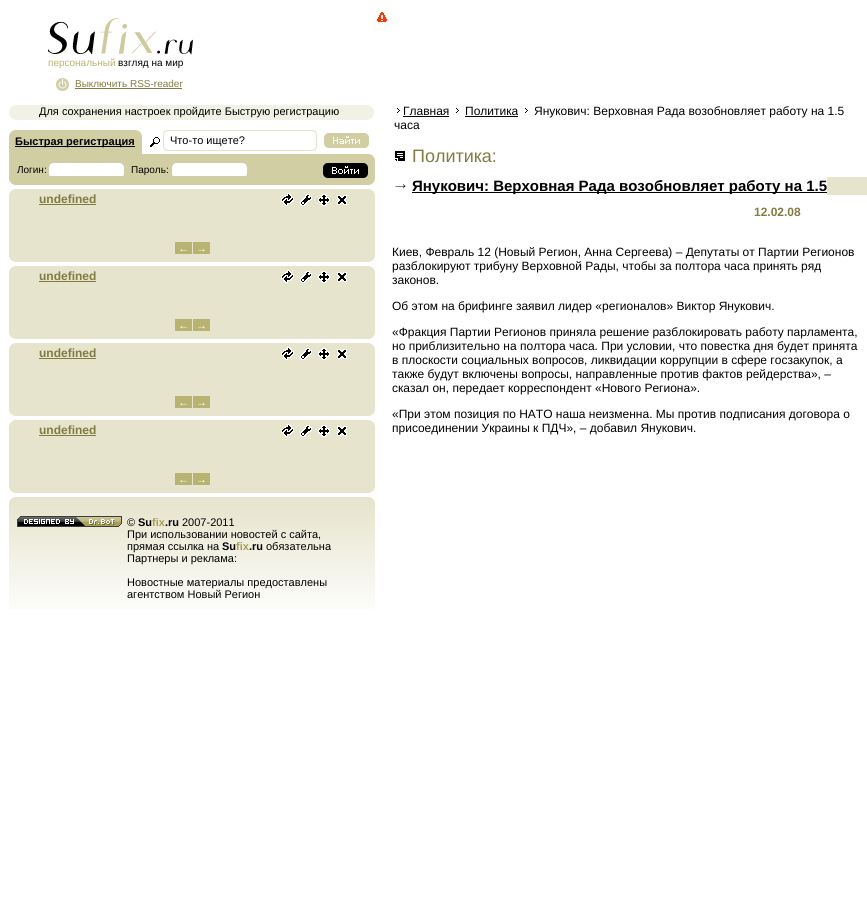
#include <cairo/cairo.h>
#include <math.h>
#include <stddef.h>

static cairo_t *cr;

static void use_color(int r, int g, int b) {
  cairo_set_source_rgb(cr, r / 255.0, g / 255.0, b / 255.0);
}

static void text(double x, double y, const char *s, const char *family, double size, int italic, int bold, int r, int g, int b) {
  cairo_select_font_face(cr, family, italic ? CAIRO_FONT_SLANT_ITALIC : CAIRO_FONT_SLANT_NORMAL,
    bold ? CAIRO_FONT_WEIGHT_BOLD : CAIRO_FONT_WEIGHT_NORMAL);
  cairo_set_font_size(cr, size);
  use_color(r, g, b);
  cairo_move_to(cr, x, y);
  cairo_show_text(cr, s);
}

static void box(double x, double y, double w, double h, int r, int g, int b) {
  use_color(r, g, b);
  cairo_rectangle(cr, x, y, w, h);
  cairo_fill(cr);
}

static void picture(const char *path, double x, double y, double w, double h) {
  cairo_surface_t *image = cairo_image_surface_create_from_png(path);
  cairo_save(cr);
  cairo_set_source_surface(cr, image, x, y);
  cairo_rectangle(cr, x, y, w, h);
  cairo_fill(cr);
  cairo_restore(cr);
  cairo_surface_destroy(image);
}

static void draw(void) {
  use_color(255, 255, 255);
  cairo_paint(cr);
  picture("img_01.png", 377, 12, 10, 10);
  picture("img_02.png", 48, 18, 145, 37);
  picture("img_03.png", 56, 78, 13, 13);
  box(75, 88, 107, 1, 130, 124, 64);
  picture("img_04.png", 9, 105, 365, 15);
  picture("img_05.png", 397, 108, 3, 5);
  box(403, 116, 46, 1, 0, 0, 0);
  picture("img_05.png", 456, 108, 3, 5);
  box(465, 116, 53, 1, 0, 0, 0);
  picture("img_05.png", 525, 108, 3, 5);
  picture("img_06.png", 395, 151, 10, 10);
  box(827, 177, 40, 18, 230, 228, 204);
  picture("img_07.png", 395, 184, 11, 5);
  box(412, 192, 415, 1, 0, 0, 0);
  box(9, 160, 366, 25, 209, 206, 163);
  picture("img_08.png", 9, 130, 366, 30);
  box(15, 146, 120, 1, 0, 0, 0);
  picture("img_09.png", 324, 133, 45, 15);
  picture("img_10.png", 49, 163, 75, 13);
  picture("img_10.png", 172, 163, 75, 13);
  picture("img_11.png", 323, 163, 45, 15);
  picture("img_12.png", 9, 179, 366, 6);
  box(9, 189, 366, 73, 230, 228, 204);
  picture("img_13.png", 9, 189, 366, 6);
  box(39, 204, 57, 1, 130, 124, 64);
  picture("img_14.png", 281, 193, 13, 13);
  picture("img_15.png", 300, 194, 12, 12);
  picture("img_16.png", 318, 194, 12, 12);
  picture("img_17.png", 337, 195, 10, 10);
  box(175, 242, 17, 12, 184, 179, 112);
  box(193, 242, 17, 12, 184, 179, 112);
  picture("img_18.png", 9, 256, 366, 6);
  box(9, 266, 366, 73, 230, 228, 204);
  picture("img_13.png", 9, 266, 366, 6);
  box(39, 281, 57, 1, 130, 124, 64);
  picture("img_14.png", 281, 270, 13, 13);
  picture("img_15.png", 300, 271, 12, 12);
  picture("img_16.png", 318, 271, 12, 12);
  picture("img_17.png", 337, 272, 10, 10);
  box(175, 319, 17, 12, 184, 179, 112);
  box(193, 319, 17, 12, 184, 179, 112);
  picture("img_18.png", 9, 333, 366, 6);
  box(9, 343, 366, 73, 230, 228, 204);
  picture("img_13.png", 9, 343, 366, 6);
  box(39, 358, 57, 1, 130, 124, 64);
  picture("img_14.png", 281, 347, 13, 13);
  picture("img_15.png", 300, 348, 12, 12);
  picture("img_16.png", 318, 348, 12, 12);
  picture("img_17.png", 337, 349, 10, 10);
  box(175, 396, 17, 12, 184, 179, 112);
  box(193, 396, 17, 12, 184, 179, 112);
  picture("img_18.png", 9, 410, 366, 6);
  box(9, 420, 366, 73, 230, 228, 204);
  picture("img_13.png", 9, 420, 366, 6);
  box(39, 435, 57, 1, 130, 124, 64);
  picture("img_14.png", 281, 424, 13, 13);
  picture("img_15.png", 300, 425, 12, 12);
  picture("img_16.png", 318, 425, 12, 12);
  picture("img_17.png", 337, 426, 10, 10);
  box(175, 473, 17, 12, 184, 179, 112);
  box(193, 473, 17, 12, 184, 179, 112);
  picture("img_18.png", 9, 487, 366, 6);
  picture("img_19.png", 9, 497, 366, 112);
  picture("img_20.png", 9, 497, 366, 6);
  picture("img_21.png", 17, 516, 105, 11);
  text(48, 66, "персональный", "Liberation Sans", 10, 0, 0, 185, 180, 113);
  text(118, 66, "взгляд на мир", "Liberation Sans", 10, 0, 0, 0, 0, 0);
  text(75, 87, "Выключить RSS-reader", "Liberation Sans", 10, 0, 0, 130, 124, 64);
  text(39, 115, "Для сохранения настроек пройдите Быструю регистрацию", "Liberation Sans", 11, 0, 0, 0, 0, 0);
  text(403, 115, "Главная", "Liberation Sans", 12, 0, 0, 0, 0, 0);
  text(465, 115, "Политика", "Liberation Sans", 12, 0, 0, 0, 0, 0);
  text(534, 115, "Янукович: Верховная Рада возобновляет работу на 1.5", "Liberation Sans", 12, 0, 0, 0, 0, 0);
  text(394, 129, "часа", "Liberation Sans", 12, 0, 0, 0, 0, 0);
  text(412, 162, "Политика:", "Liberation Sans", 18, 0, 0, 130, 124, 64);
  text(412, 191, "Янукович: Верховная Рада возобновляет работу на 1.5", "Liberation Sans", 15, 0, 1, 0, 0, 0);
  text(754, 216, "12.02.08", "Liberation Sans", 12, 0, 1, 130, 124, 64);
  text(392, 256, "Киев, Февраль 12 (Новый Регион, Анна Сергеева) – Депутаты от Партии Регионов", "Liberation Sans", 12, 0, 0, 0, 0, 0);
  text(392, 270, "разблокируют трибуну Верховной Рады, чтобы за полтора часа принять ряд", "Liberation Sans", 12, 0, 0, 0, 0, 0);
  text(392, 284, "законов.", "Liberation Sans", 12, 0, 0, 0, 0, 0);
  text(392, 310, "Об этом на брифинге заявил лидер «регионалов» Виктор Янукович.", "Liberation Sans", 12, 0, 0, 0, 0, 0);
  text(392, 336, "«Фракция Партии Регионов приняла решение разблокировать работу парламента,", "Liberation Sans", 12, 0, 0, 0, 0, 0);
  text(392, 350, "но приблизительно на полтора часа. При условии, что повестка дня будет принята", "Liberation Sans", 12, 0, 0, 0, 0, 0);
  text(392, 364, "в плоскости социальных вопросов, ликвидации коррупции в сфере госзакупок, а", "Liberation Sans", 12, 0, 0, 0, 0, 0);
  text(392, 378, "также будут включены вопросы, направленные против фактов рейдерства», –", "Liberation Sans", 12, 0, 0, 0, 0, 0);
  text(392, 392, "сказал он, передает корреспондент «Нового Региона».", "Liberation Sans", 12, 0, 0, 0, 0, 0);
  text(392, 418, "«При этом позиция по НАТО наша неизменна. Мы против подписания договора о", "Liberation Sans", 12, 0, 0, 0, 0, 0);
  text(392, 432, "присоединении Украины к ПДЧ», – добавил Янукович.", "Liberation Sans", 12, 0, 0, 0, 0, 0);
  text(15, 145, "Быстрая регистрация", "Liberation Sans", 11, 0, 1, 0, 0, 0);
  text(170, 144, "Что-то ищете?", "Liberation Sans", 11, 0, 0, 0, 0, 0);
  text(17, 173, "Логин:", "Liberation Sans", 10, 0, 0, 0, 0, 0);
  text(131, 173, "Пароль:", "Liberation Sans", 10, 0, 0, 0, 0, 0);
  text(39, 203, "undefined", "Liberation Sans", 12, 0, 1, 130, 124, 64);
  text(178, 252, "←", "Liberation Sans", 11, 0, 0, 255, 255, 255);
  text(196, 252, "→", "Liberation Sans", 11, 0, 0, 255, 255, 255);
  text(39, 280, "undefined", "Liberation Sans", 12, 0, 1, 130, 124, 64);
  text(178, 329, "←", "Liberation Sans", 11, 0, 0, 255, 255, 255);
  text(196, 329, "→", "Liberation Sans", 11, 0, 0, 255, 255, 255);
  text(39, 357, "undefined", "Liberation Sans", 12, 0, 1, 130, 124, 64);
  text(178, 406, "←", "Liberation Sans", 11, 0, 0, 255, 255, 255);
  text(196, 406, "→", "Liberation Sans", 11, 0, 0, 255, 255, 255);
  text(39, 434, "undefined", "Liberation Sans", 12, 0, 1, 130, 124, 64);
  text(178, 483, "←", "Liberation Sans", 11, 0, 0, 255, 255, 255);
  text(196, 483, "→", "Liberation Sans", 11, 0, 0, 255, 255, 255);
  text(127, 526, "©", "Liberation Sans", 11, 0, 0, 0, 0, 0);
  text(138, 526, "Su", "Liberation Sans", 11, 0, 1, 0, 0, 0);
  text(152, 526, "fix", "Liberation Sans", 11, 0, 1, 168, 159, 83);
  text(165, 526, ".ru", "Liberation Sans", 11, 0, 1, 0, 0, 0);
  text(182, 526, "2007-2011", "Liberation Sans", 11, 0, 0, 0, 0, 0);
  text(127, 538, "При использовании новостей с сайта,", "Liberation Sans", 11, 0, 0, 0, 0, 0);
  text(127, 550, "прямая ссылка на", "Liberation Sans", 11, 0, 0, 0, 0, 0);
  text(222, 550, "Su", "Liberation Sans", 11, 0, 1, 0, 0, 0);
  text(236, 550, "fix", "Liberation Sans", 11, 0, 1, 168, 159, 83);
  text(249, 550, ".ru", "Liberation Sans", 11, 0, 1, 0, 0, 0);
  text(266, 550, "обязательна", "Liberation Sans", 11, 0, 0, 0, 0, 0);
  text(127, 562, "Партнеры и реклама:", "Liberation Sans", 11, 0, 0, 0, 0, 0);
  text(127, 586, "Новостные материалы предоставлены", "Liberation Sans", 11, 0, 0, 0, 0, 0);
  text(127, 598, "агентством Новый Регион", "Liberation Sans", 11, 0, 0, 0, 0, 0);
}

int main(void) {
  cairo_surface_t *surface = cairo_image_surface_create(CAIRO_FORMAT_RGB24, 867, 906);
  cr = cairo_create(surface);
  cairo_font_options_t *options = cairo_font_options_create();
  cairo_font_options_set_hint_metrics(options, CAIRO_HINT_METRICS_OFF);
  cairo_font_options_set_hint_style(options, CAIRO_HINT_STYLE_NONE);
  cairo_set_font_options(cr, options);
  cairo_set_miter_limit(cr, 4);
  draw();
  cairo_surface_write_to_png(surface, "out.png");
  cairo_font_options_destroy(options);
  cairo_destroy(cr);
  cairo_surface_destroy(surface);
  return 0;
}
